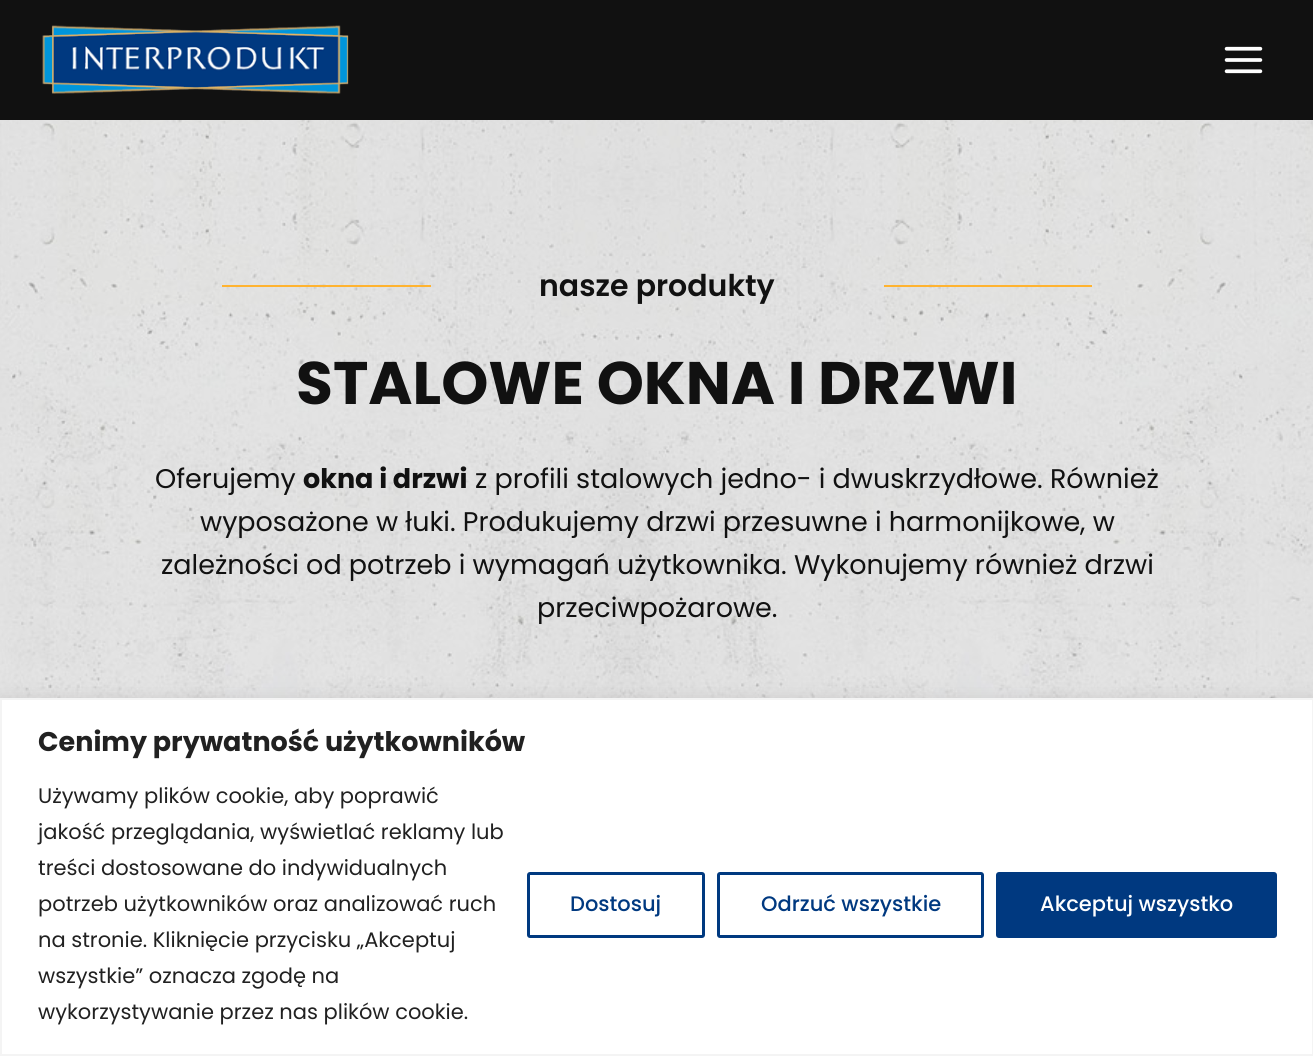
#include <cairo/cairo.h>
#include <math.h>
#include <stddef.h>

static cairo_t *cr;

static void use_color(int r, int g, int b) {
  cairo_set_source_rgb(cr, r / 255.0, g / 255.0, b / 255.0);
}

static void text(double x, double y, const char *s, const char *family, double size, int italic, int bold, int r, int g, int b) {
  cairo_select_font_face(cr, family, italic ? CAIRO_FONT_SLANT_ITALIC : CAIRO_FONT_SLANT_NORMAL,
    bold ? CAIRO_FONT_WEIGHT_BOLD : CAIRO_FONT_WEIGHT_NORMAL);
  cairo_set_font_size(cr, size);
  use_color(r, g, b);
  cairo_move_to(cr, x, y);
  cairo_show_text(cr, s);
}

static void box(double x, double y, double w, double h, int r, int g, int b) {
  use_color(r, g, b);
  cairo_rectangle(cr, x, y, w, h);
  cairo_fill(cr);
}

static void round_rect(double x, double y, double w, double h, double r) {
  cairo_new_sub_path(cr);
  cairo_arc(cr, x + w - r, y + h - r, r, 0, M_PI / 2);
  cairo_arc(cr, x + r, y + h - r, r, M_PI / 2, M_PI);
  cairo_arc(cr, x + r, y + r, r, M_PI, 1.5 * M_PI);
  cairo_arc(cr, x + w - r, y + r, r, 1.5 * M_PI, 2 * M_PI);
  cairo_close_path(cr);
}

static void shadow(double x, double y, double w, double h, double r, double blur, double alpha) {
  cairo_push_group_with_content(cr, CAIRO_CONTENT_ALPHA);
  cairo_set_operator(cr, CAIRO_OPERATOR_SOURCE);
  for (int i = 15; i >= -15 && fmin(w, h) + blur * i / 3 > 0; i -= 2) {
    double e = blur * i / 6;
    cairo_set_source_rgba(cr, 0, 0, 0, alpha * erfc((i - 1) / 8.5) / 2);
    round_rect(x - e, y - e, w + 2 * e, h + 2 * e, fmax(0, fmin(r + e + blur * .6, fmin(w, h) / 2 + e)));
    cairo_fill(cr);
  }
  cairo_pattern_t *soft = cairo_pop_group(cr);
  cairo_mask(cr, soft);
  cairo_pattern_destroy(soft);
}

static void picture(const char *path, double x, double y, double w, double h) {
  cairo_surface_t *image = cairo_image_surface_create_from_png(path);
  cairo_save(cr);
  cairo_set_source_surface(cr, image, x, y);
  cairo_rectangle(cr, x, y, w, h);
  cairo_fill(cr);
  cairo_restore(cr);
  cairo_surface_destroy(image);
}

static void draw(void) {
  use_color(255, 255, 255);
  cairo_paint(cr);
  picture("img_01.png", 0, 120, 1313, 578);
  box(0, 0, 1313, 120, 17, 17, 17);
  picture("img_02.png", 42, 25, 307, 69);
  picture("img_03.png", 1224, 46, 39, 28);
  box(222, 285, 209, 2, 255, 179, 48);
  box(884, 285, 208, 2, 255, 179, 48);
  use_color(172, 171, 171);
  shadow(0, 696, 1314, 359, 0, 7.5, 0.3);
  use_color(255, 255, 255);
  cairo_rectangle(cr, 1, 699, 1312, 356);
  cairo_fill_preserve(cr);
  use_color(244, 244, 244);
  cairo_stroke(cr);
  round_rect(528.5, 873.5, 175, 63, 1.5);
  use_color(0, 57, 128);
  cairo_set_line_width(cr, 3);
  cairo_stroke(cr);
  round_rect(718.5, 873.5, 264, 63, 1.5);
  cairo_stroke(cr);
  round_rect(997.5, 873.5, 278, 63, 1.5);
  cairo_fill_preserve(cr);
  cairo_stroke(cr);
  text(539, 296, "nasze produkty", "Poppins SemiBold", 30, 0, 0, 17, 17, 17);
  text(296, 404, "STALOWE OKNA I DRZWI", "Poppins", 60, 0, 1, 17, 17, 17);
  text(155, 488, "Oferujemy", "Poppins", 27, 0, 0, 17, 17, 17);
  text(303, 488, "okna i drzwi", "Poppins", 27, 0, 1, 17, 17, 17);
  text(475, 488, "z profili stalowych jedno- i dwuskrzydłowe. Również", "Poppins", 27, 0, 0, 17, 17, 17);
  text(200, 531, "wyposażone w łuki. Produkujemy drzwi przesuwne i harmonijkowe, w", "Poppins", 27, 0, 0, 17, 17, 17);
  text(161, 574, "zależności od potrzeb i wymagań użytkownika. Wykonujemy również drzwi", "Poppins", 27, 0, 0, 17, 17, 17);
  text(537, 617, "przeciwpożarowe.", "Poppins", 27, 0, 0, 17, 17, 17);
  text(38, 751, "Cenimy prywatność użytkowników", "Poppins", 27, 0, 1, 33, 33, 33);
  text(38, 803, "Używamy plików cookie, aby poprawić", "Poppins", 21, 0, 0, 33, 33, 33);
  text(38, 839, "jakość przeglądania, wyświetlać reklamy lub", "Poppins", 21, 0, 0, 33, 33, 33);
  text(38, 875, "treści dostosowane do indywidualnych", "Poppins", 21, 0, 0, 33, 33, 33);
  text(38, 911, "potrzeb użytkowników oraz analizować ruch", "Poppins", 21, 0, 0, 33, 33, 33);
  text(38, 947, "na stronie. Kliknięcie przycisku „Akceptuj", "Poppins", 21, 0, 0, 33, 33, 33);
  text(38, 983, "wszystkie” oznacza zgodę na", "Poppins", 21, 0, 0, 33, 33, 33);
  text(38, 1019, "wykorzystywanie przez nas plików cookie.", "Poppins", 21, 0, 0, 33, 33, 33);
  text(570, 911, "Dostosuj", "Poppins Medium", 21, 0, 0, 0, 57, 128);
  text(761, 911, "Odrzuć wszystkie", "Poppins Medium", 21, 0, 0, 0, 57, 128);
  text(1040, 911, "Akceptuj wszystko", "Poppins Medium", 21, 0, 0, 255, 255, 255);
}

int main(void) {
  cairo_surface_t *surface = cairo_image_surface_create(CAIRO_FORMAT_RGB24, 1313, 1056);
  cr = cairo_create(surface);
  cairo_font_options_t *options = cairo_font_options_create();
  cairo_font_options_set_hint_metrics(options, CAIRO_HINT_METRICS_OFF);
  cairo_font_options_set_hint_style(options, CAIRO_HINT_STYLE_NONE);
  cairo_set_font_options(cr, options);
  cairo_set_miter_limit(cr, 4);
  draw();
  cairo_surface_write_to_png(surface, "out.png");
  cairo_font_options_destroy(options);
  cairo_destroy(cr);
  cairo_surface_destroy(surface);
  return 0;
}
